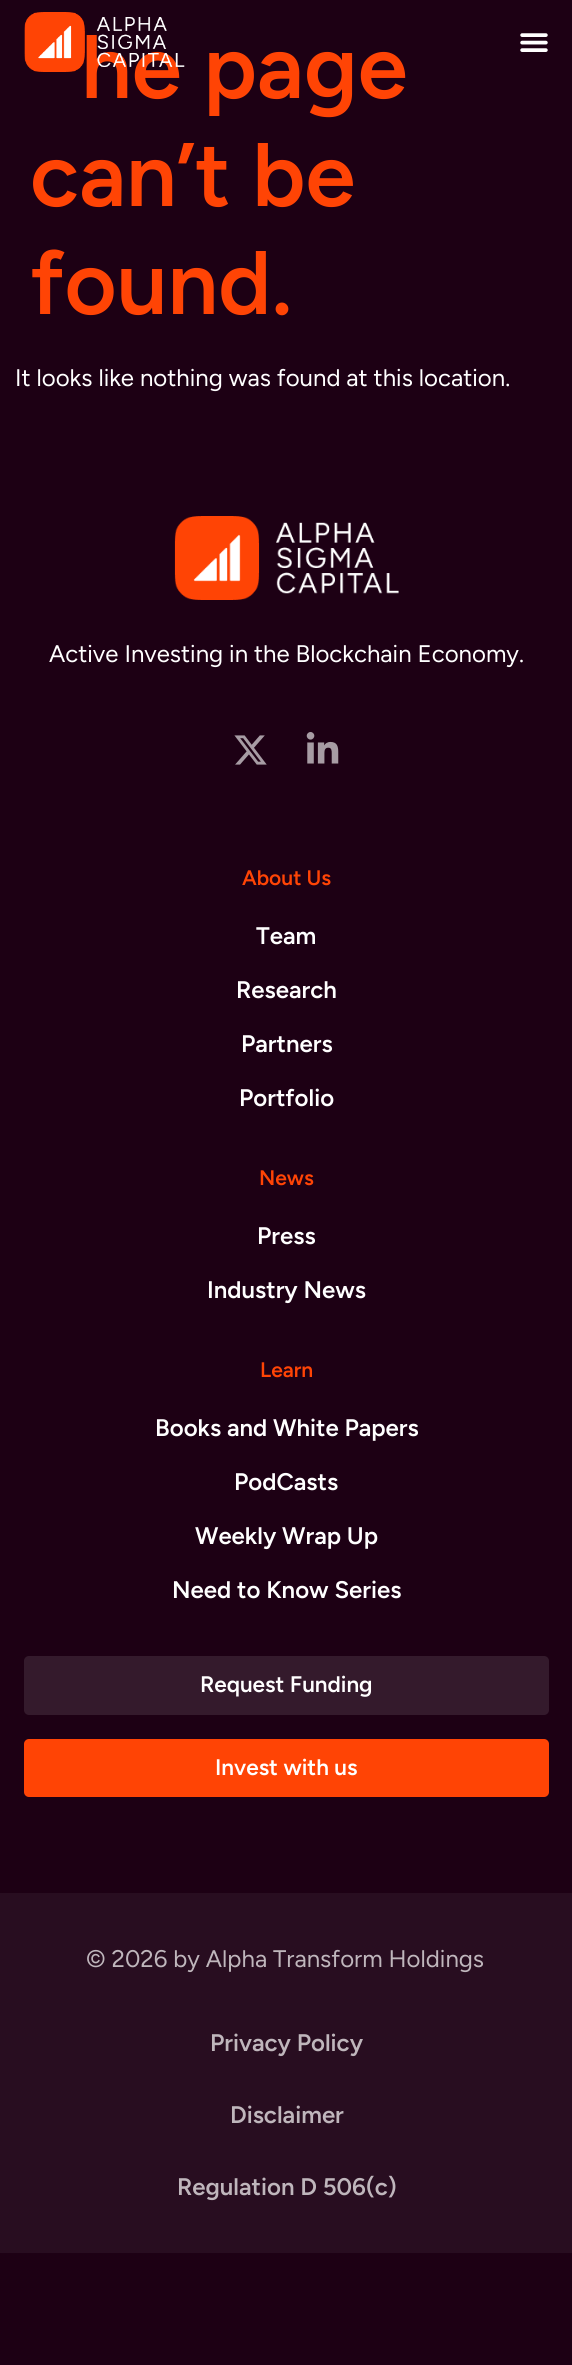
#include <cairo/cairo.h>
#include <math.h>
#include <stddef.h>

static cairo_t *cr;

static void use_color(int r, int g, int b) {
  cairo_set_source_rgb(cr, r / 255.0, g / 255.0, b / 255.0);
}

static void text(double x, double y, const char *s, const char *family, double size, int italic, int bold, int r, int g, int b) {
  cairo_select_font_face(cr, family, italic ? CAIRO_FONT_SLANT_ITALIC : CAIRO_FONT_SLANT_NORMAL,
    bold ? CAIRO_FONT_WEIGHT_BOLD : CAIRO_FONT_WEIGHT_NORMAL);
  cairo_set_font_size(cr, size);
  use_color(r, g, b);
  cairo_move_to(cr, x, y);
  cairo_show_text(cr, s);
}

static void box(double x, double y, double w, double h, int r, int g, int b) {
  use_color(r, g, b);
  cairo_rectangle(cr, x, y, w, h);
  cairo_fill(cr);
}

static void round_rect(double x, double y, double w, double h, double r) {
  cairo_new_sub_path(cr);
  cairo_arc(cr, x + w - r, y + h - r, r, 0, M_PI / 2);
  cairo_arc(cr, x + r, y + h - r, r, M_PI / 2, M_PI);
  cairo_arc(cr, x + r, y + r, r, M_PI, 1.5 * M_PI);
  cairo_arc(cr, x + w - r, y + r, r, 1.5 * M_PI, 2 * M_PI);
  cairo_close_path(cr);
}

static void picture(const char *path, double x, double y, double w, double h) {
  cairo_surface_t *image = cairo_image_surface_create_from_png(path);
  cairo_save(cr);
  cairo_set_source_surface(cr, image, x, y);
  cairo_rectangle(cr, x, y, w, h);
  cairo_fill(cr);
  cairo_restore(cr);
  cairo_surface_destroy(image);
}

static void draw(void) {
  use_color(29, 0, 20);
  cairo_paint(cr);
  picture("img_02.png", 520, 33, 28, 19);
  picture("img_03.png", 174, 516, 225, 84);
  picture("img_04.png", 234, 735, 33, 30);
  picture("img_05.png", 306, 732, 33, 32);
  use_color(52, 26, 44);
  round_rect(24, 1656, 525, 59, 5);
  cairo_fill(cr);
  use_color(255, 68, 5);
  round_rect(24, 1739, 525, 58, 5);
  cairo_fill(cr);
  box(0, 1893, 572, 360, 40, 13, 32);
  text(81, 98, "he page", "Figtree SemiBold", 90, 0, 0, 255, 68, 5);
  picture("img_01.png", 24, 12, 161, 60);
  text(30, 206, "can’t be", "Figtree SemiBold", 90, 0, 0, 255, 68, 5);
  text(30, 314, "found.", "Figtree SemiBold", 90, 0, 0, 255, 68, 5);
  text(15, 386, "It looks like nothing was found at this location.", "Figtree", 24, 0, 0, 255, 255, 255);
  text(49, 662, "Active Investing in the Blockchain Economy.", "Figtree", 24, 0, 0, 255, 255, 255);
  text(242, 885, "About Us", "Figtree SemiBold", 21, 0, 0, 255, 68, 5);
  text(256, 944, "Team", "Figtree SemiBold", 24, 0, 0, 255, 255, 255);
  text(236, 998, "Research", "Figtree SemiBold", 24, 0, 0, 255, 255, 255);
  text(241, 1052, "Partners", "Figtree SemiBold", 24, 0, 0, 255, 255, 255);
  text(239, 1106, "Portfolio", "Figtree SemiBold", 24, 0, 0, 255, 255, 255);
  text(259, 1185, "News", "Figtree SemiBold", 21, 0, 0, 255, 68, 5);
  text(257, 1244, "Press", "Figtree SemiBold", 24, 0, 0, 255, 255, 255);
  text(207, 1298, "Industry News", "Figtree SemiBold", 24, 0, 0, 255, 255, 255);
  text(260, 1377, "Learn", "Figtree SemiBold", 21, 0, 0, 255, 68, 5);
  text(155, 1436, "Books and White Papers", "Figtree SemiBold", 24, 0, 0, 255, 255, 255);
  text(234, 1490, "PodCasts", "Figtree SemiBold", 24, 0, 0, 255, 255, 255);
  text(195, 1544, "Weekly Wrap Up", "Figtree SemiBold", 24, 0, 0, 255, 255, 255);
  text(172, 1598, "Need to Know Series", "Figtree SemiBold", 24, 0, 0, 255, 255, 255);
  text(200, 1692, "Request Funding", "Figtree SemiBold", 22.5, 0, 0, 255, 255, 255);
  text(215, 1775, "Invest with us", "Figtree SemiBold", 22.5, 0, 0, 255, 255, 255);
  text(86, 1967, "© 2026 by Alpha Transform Holdings", "Figtree", 24, 0, 0, 191, 182, 188);
  text(210, 2051, "Privacy Policy", "Figtree SemiBold", 24, 0, 0, 191, 182, 188);
  text(230, 2123, "Disclaimer", "Figtree SemiBold", 24, 0, 0, 191, 182, 188);
  text(177, 2195, "Regulation D 506(c)", "Figtree SemiBold", 24, 0, 0, 191, 182, 188);
}

int main(void) {
  cairo_surface_t *surface = cairo_image_surface_create(CAIRO_FORMAT_RGB24, 572, 2365);
  cr = cairo_create(surface);
  cairo_font_options_t *options = cairo_font_options_create();
  cairo_font_options_set_hint_metrics(options, CAIRO_HINT_METRICS_OFF);
  cairo_font_options_set_hint_style(options, CAIRO_HINT_STYLE_NONE);
  cairo_set_font_options(cr, options);
  cairo_set_miter_limit(cr, 4);
  draw();
  cairo_surface_write_to_png(surface, "out.png");
  cairo_font_options_destroy(options);
  cairo_destroy(cr);
  cairo_surface_destroy(surface);
  return 0;
}
